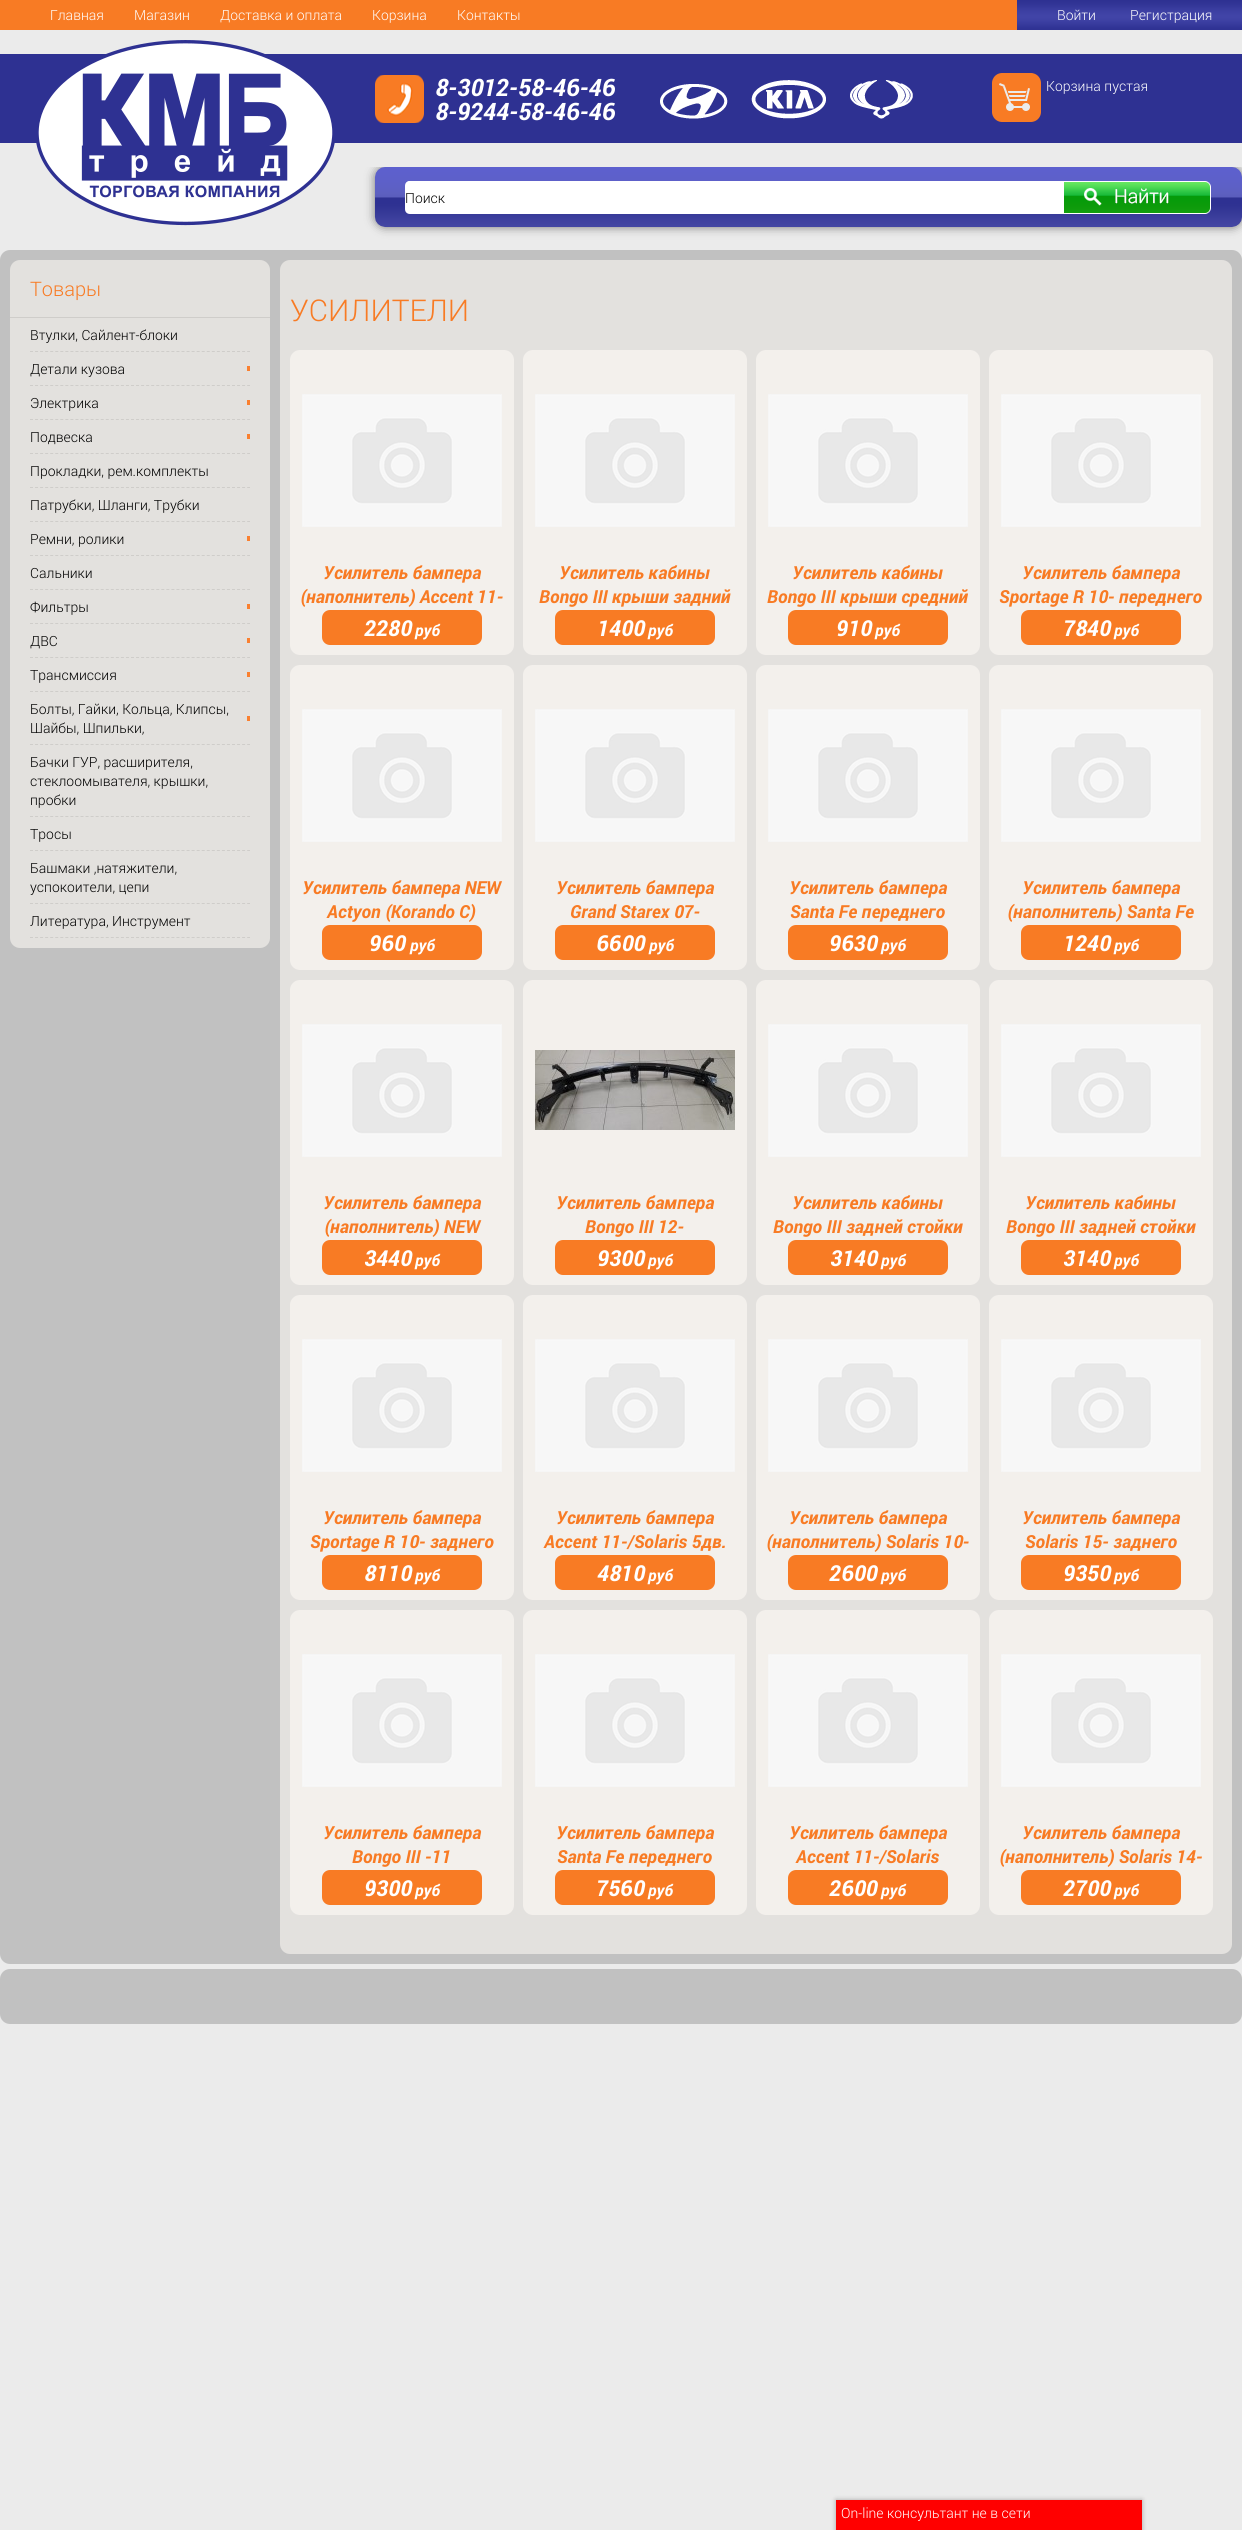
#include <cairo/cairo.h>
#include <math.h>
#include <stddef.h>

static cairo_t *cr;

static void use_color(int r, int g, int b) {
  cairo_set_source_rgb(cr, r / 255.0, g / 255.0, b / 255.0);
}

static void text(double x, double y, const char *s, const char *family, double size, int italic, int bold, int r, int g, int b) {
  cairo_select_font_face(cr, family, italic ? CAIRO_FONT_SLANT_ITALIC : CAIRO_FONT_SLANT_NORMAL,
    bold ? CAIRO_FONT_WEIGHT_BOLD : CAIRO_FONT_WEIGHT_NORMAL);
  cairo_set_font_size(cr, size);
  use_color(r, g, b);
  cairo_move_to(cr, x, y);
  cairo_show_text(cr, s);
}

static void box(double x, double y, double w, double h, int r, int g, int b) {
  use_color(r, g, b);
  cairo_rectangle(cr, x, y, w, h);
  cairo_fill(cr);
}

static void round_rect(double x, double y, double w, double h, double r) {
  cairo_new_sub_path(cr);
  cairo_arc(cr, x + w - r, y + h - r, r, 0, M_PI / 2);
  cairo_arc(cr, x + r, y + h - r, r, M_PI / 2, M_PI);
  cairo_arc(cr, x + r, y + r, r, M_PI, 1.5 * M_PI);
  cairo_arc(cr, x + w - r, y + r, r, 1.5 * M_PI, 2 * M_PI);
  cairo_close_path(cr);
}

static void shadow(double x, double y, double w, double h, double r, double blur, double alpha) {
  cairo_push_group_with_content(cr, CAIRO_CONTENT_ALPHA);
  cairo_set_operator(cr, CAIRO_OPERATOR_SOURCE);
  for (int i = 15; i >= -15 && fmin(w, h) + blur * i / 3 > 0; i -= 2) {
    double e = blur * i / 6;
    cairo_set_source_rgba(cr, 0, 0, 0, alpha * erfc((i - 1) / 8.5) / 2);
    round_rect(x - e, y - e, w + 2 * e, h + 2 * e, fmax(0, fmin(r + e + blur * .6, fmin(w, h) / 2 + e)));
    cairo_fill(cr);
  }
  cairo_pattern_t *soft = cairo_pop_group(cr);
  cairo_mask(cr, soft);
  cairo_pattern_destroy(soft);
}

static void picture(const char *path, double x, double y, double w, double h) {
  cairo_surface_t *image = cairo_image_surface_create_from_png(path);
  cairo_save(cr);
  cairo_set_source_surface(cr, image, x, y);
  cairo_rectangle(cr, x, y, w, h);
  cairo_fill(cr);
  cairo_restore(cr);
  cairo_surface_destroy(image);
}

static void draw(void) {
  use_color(235, 235, 235);
  cairo_paint(cr);
  box(0, 0, 1017, 30, 248, 123, 36);
  picture("img_01.png", 1017, 0, 225, 30);
  use_color(0, 0, 0);
  shadow(375, 167, 867, 60, 10, 5, 0.5);
  picture("img_02.png", 0, 54, 1242, 113);
  picture("img_03.png", 36, 40, 299, 186);
  picture("img_04.png", 375, 75, 49, 48);
  picture("img_05.png", 660, 84, 68, 35);
  picture("img_06.png", 751, 80, 75, 39);
  picture("img_07.png", 850, 80, 63, 39);
  picture("img_08.png", 992, 73, 49, 49);
  picture("img_09.png", 375, 167, 867, 60);
  use_color(255, 255, 255);
  cairo_new_path(cr);
  cairo_move_to(cr, 410, 181);
  cairo_line_to(cr, 1064, 181);
  cairo_line_to(cr, 1064, 214);
  cairo_line_to(cr, 410, 214);
  cairo_curve_to(cr, 407, 214, 405, 212, 405, 209);
  cairo_line_to(cr, 405, 186);
  cairo_curve_to(cr, 405, 183, 407, 181, 410, 181);
  cairo_close_path(cr);
  cairo_fill(cr);
  cairo_new_path(cr);
  cairo_move_to(cr, 410, 182);
  cairo_line_to(cr, 1064, 182);
  cairo_line_to(cr, 1064, 181);
  cairo_line_to(cr, 410, 181);
  cairo_curve_to(cr, 407, 181, 405, 184, 405, 187);
  cairo_curve_to(cr, 405, 184, 407, 182, 410, 182);
  cairo_close_path(cr);
  cairo_fill(cr);
  picture("img_10.png", 1064, 181, 147, 33);
  use_color(193, 193, 193);
  round_rect(0, 250, 1242, 1714, 10);
  cairo_fill(cr);
  use_color(227, 225, 222);
  round_rect(10, 260, 260, 688, 10);
  cairo_fill(cr);
  box(10, 317, 260, 1, 207, 205, 202);
  cairo_new_path(cr);
  cairo_move_to(cr, 30, 351.5);
  cairo_line_to(cr, 250, 351.5);
  cairo_set_line_width(cr, 1);
  cairo_set_dash(cr, (double[]){3, 2.05}, 2, 0);
  cairo_stroke(cr);
  box(247, 366, 3, 5, 250, 128, 48);
  cairo_new_path(cr);
  cairo_move_to(cr, 30, 385.5);
  cairo_line_to(cr, 250, 385.5);
  use_color(207, 205, 202);
  cairo_stroke(cr);
  box(247, 400, 3, 5, 250, 128, 48);
  cairo_new_path(cr);
  cairo_move_to(cr, 30, 419.5);
  cairo_line_to(cr, 250, 419.5);
  use_color(207, 205, 202);
  cairo_stroke(cr);
  box(247, 434, 3, 5, 250, 128, 48);
  cairo_new_path(cr);
  cairo_move_to(cr, 30, 453.5);
  cairo_line_to(cr, 250, 453.5);
  use_color(207, 205, 202);
  cairo_stroke(cr);
  cairo_new_path(cr);
  cairo_move_to(cr, 30, 487.5);
  cairo_line_to(cr, 250, 487.5);
  cairo_stroke(cr);
  cairo_new_path(cr);
  cairo_move_to(cr, 30, 521.5);
  cairo_line_to(cr, 250, 521.5);
  cairo_stroke(cr);
  box(247, 536, 3, 5, 250, 128, 48);
  cairo_new_path(cr);
  cairo_move_to(cr, 30, 555.5);
  cairo_line_to(cr, 250, 555.5);
  use_color(207, 205, 202);
  cairo_stroke(cr);
  cairo_new_path(cr);
  cairo_move_to(cr, 30, 589.5);
  cairo_line_to(cr, 250, 589.5);
  cairo_stroke(cr);
  box(247, 604, 3, 5, 250, 128, 48);
  cairo_new_path(cr);
  cairo_move_to(cr, 30, 623.5);
  cairo_line_to(cr, 250, 623.5);
  use_color(207, 205, 202);
  cairo_stroke(cr);
  box(247, 638, 3, 5, 250, 128, 48);
  cairo_new_path(cr);
  cairo_move_to(cr, 30, 657.5);
  cairo_line_to(cr, 250, 657.5);
  use_color(207, 205, 202);
  cairo_stroke(cr);
  box(247, 672, 3, 5, 250, 128, 48);
  cairo_new_path(cr);
  cairo_move_to(cr, 30, 691.5);
  cairo_line_to(cr, 250, 691.5);
  use_color(207, 205, 202);
  cairo_stroke(cr);
  box(247, 716, 3, 5, 250, 128, 48);
  cairo_new_path(cr);
  cairo_move_to(cr, 30, 744.5);
  cairo_line_to(cr, 250, 744.5);
  use_color(207, 205, 202);
  cairo_stroke(cr);
  cairo_new_path(cr);
  cairo_move_to(cr, 30, 816.5);
  cairo_line_to(cr, 250, 816.5);
  cairo_stroke(cr);
  cairo_new_path(cr);
  cairo_move_to(cr, 30, 850.5);
  cairo_line_to(cr, 250, 850.5);
  cairo_stroke(cr);
  cairo_new_path(cr);
  cairo_move_to(cr, 30, 903.5);
  cairo_line_to(cr, 250, 903.5);
  cairo_stroke(cr);
  cairo_new_path(cr);
  cairo_move_to(cr, 30, 937.5);
  cairo_line_to(cr, 250, 937.5);
  cairo_stroke(cr);
  use_color(227, 225, 222);
  round_rect(280, 260, 952, 1694, 10);
  cairo_fill(cr);
  use_color(243, 240, 236);
  round_rect(290, 350, 224, 305, 10);
  cairo_fill(cr);
  picture("img_11.png", 302, 394, 200, 133);
  use_color(248, 123, 36);
  round_rect(322, 610, 160, 35, 8);
  cairo_fill(cr);
  use_color(243, 240, 236);
  round_rect(523, 350, 224, 305, 10);
  cairo_fill(cr);
  picture("img_11.png", 535, 394, 200, 133);
  use_color(248, 123, 36);
  round_rect(555, 610, 160, 35, 8);
  cairo_fill(cr);
  use_color(243, 240, 236);
  round_rect(756, 350, 224, 305, 10);
  cairo_fill(cr);
  picture("img_11.png", 768, 394, 200, 133);
  use_color(248, 123, 36);
  round_rect(788, 610, 160, 35, 8);
  cairo_fill(cr);
  use_color(243, 240, 236);
  round_rect(989, 350, 224, 305, 10);
  cairo_fill(cr);
  picture("img_11.png", 1001, 394, 200, 133);
  use_color(248, 123, 36);
  round_rect(1021, 610, 160, 35, 8);
  cairo_fill(cr);
  use_color(243, 240, 236);
  round_rect(290, 665, 224, 305, 10);
  cairo_fill(cr);
  picture("img_11.png", 302, 709, 200, 133);
  use_color(248, 123, 36);
  round_rect(322, 925, 160, 35, 8);
  cairo_fill(cr);
  use_color(243, 240, 236);
  round_rect(523, 665, 224, 305, 10);
  cairo_fill(cr);
  picture("img_11.png", 535, 709, 200, 133);
  use_color(248, 123, 36);
  round_rect(555, 925, 160, 35, 8);
  cairo_fill(cr);
  use_color(243, 240, 236);
  round_rect(756, 665, 224, 305, 10);
  cairo_fill(cr);
  picture("img_11.png", 768, 709, 200, 133);
  use_color(248, 123, 36);
  round_rect(788, 925, 160, 35, 8);
  cairo_fill(cr);
  use_color(243, 240, 236);
  round_rect(989, 665, 224, 305, 10);
  cairo_fill(cr);
  picture("img_11.png", 1001, 709, 200, 133);
  use_color(248, 123, 36);
  round_rect(1021, 925, 160, 35, 8);
  cairo_fill(cr);
  use_color(243, 240, 236);
  round_rect(290, 980, 224, 305, 10);
  cairo_fill(cr);
  picture("img_11.png", 302, 1024, 200, 133);
  use_color(248, 123, 36);
  round_rect(322, 1240, 160, 35, 8);
  cairo_fill(cr);
  use_color(243, 240, 236);
  round_rect(523, 980, 224, 305, 10);
  cairo_fill(cr);
  picture("img_12.png", 535, 1050, 200, 80);
  use_color(248, 123, 36);
  round_rect(555, 1240, 160, 35, 8);
  cairo_fill(cr);
  use_color(243, 240, 236);
  round_rect(756, 980, 224, 305, 10);
  cairo_fill(cr);
  picture("img_11.png", 768, 1024, 200, 133);
  use_color(248, 123, 36);
  round_rect(788, 1240, 160, 35, 8);
  cairo_fill(cr);
  use_color(243, 240, 236);
  round_rect(989, 980, 224, 305, 10);
  cairo_fill(cr);
  picture("img_11.png", 1001, 1024, 200, 133);
  use_color(248, 123, 36);
  round_rect(1021, 1240, 160, 35, 8);
  cairo_fill(cr);
  use_color(243, 240, 236);
  round_rect(290, 1295, 224, 305, 10);
  cairo_fill(cr);
  picture("img_11.png", 302, 1339, 200, 133);
  use_color(248, 123, 36);
  round_rect(322, 1555, 160, 35, 8);
  cairo_fill(cr);
  use_color(243, 240, 236);
  round_rect(523, 1295, 224, 305, 10);
  cairo_fill(cr);
  picture("img_11.png", 535, 1339, 200, 133);
  use_color(248, 123, 36);
  round_rect(555, 1555, 160, 35, 8);
  cairo_fill(cr);
  use_color(243, 240, 236);
  round_rect(756, 1295, 224, 305, 10);
  cairo_fill(cr);
  picture("img_11.png", 768, 1339, 200, 133);
  use_color(248, 123, 36);
  round_rect(788, 1555, 160, 35, 8);
  cairo_fill(cr);
  use_color(243, 240, 236);
  round_rect(989, 1295, 224, 305, 10);
  cairo_fill(cr);
  picture("img_11.png", 1001, 1339, 200, 133);
  use_color(248, 123, 36);
  round_rect(1021, 1555, 160, 35, 8);
  cairo_fill(cr);
  use_color(243, 240, 236);
  round_rect(290, 1610, 224, 305, 10);
  cairo_fill(cr);
  picture("img_11.png", 302, 1654, 200, 133);
  use_color(248, 123, 36);
  round_rect(322, 1870, 160, 35, 8);
  cairo_fill(cr);
  use_color(243, 240, 236);
  round_rect(523, 1610, 224, 305, 10);
  cairo_fill(cr);
  picture("img_11.png", 535, 1654, 200, 133);
  use_color(248, 123, 36);
  round_rect(555, 1870, 160, 35, 8);
  cairo_fill(cr);
  use_color(243, 240, 236);
  round_rect(756, 1610, 224, 305, 10);
  cairo_fill(cr);
  picture("img_11.png", 768, 1654, 200, 133);
  use_color(248, 123, 36);
  round_rect(788, 1870, 160, 35, 8);
  cairo_fill(cr);
  use_color(243, 240, 236);
  round_rect(989, 1610, 224, 305, 10);
  cairo_fill(cr);
  picture("img_11.png", 1001, 1654, 200, 133);
  use_color(248, 123, 36);
  round_rect(1021, 1870, 160, 35, 8);
  cairo_fill(cr);
  use_color(193, 193, 193);
  round_rect(0, 1969, 1242, 55, 10);
  cairo_fill(cr);
  use_color(0, 0, 0);
  shadow(836, 2500, 306, 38, 0, 2.5, 0.3);
  box(836, 2500, 306, 30, 255, 0, 0);
  text(50, 20, "Главная", "Roboto Light", 14, 0, 0, 255, 255, 255);
  text(134, 20, "Магазин", "Roboto Light", 14, 0, 0, 255, 255, 255);
  text(220, 20, "Доставка и оплата", "Roboto Light", 14, 0, 0, 255, 255, 255);
  text(372, 20, "Корзина", "Roboto Light", 14, 0, 0, 255, 255, 255);
  text(457, 20, "Контакты", "Roboto Light", 14, 0, 0, 255, 255, 255);
  text(1057, 20, "Войти", "Roboto Light", 14, 0, 0, 255, 255, 255);
  text(1130, 20, "Регистрация", "Roboto Light", 14, 0, 0, 255, 255, 255);
  text(435, 96, "8-3012-58-46-46", "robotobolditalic", 24, 1, 1, 255, 255, 255);
  text(435, 120, "8-9244-58-46-46", "robotobolditalic", 24, 1, 1, 255, 255, 255);
  text(1046, 91, "Корзина пустая", "Roboto Light", 14, 0, 0, 255, 255, 255);
  text(405, 203, "Поиск", "Roboto Light", 14, 0, 0, 0, 0, 0);
  text(30, 296, "Товары", "Roboto Light", 20, 0, 0, 248, 123, 36);
  text(30, 340, "Втулки, Сайлент-блоки", "Roboto Light", 14, 0, 0, 0, 0, 0);
  text(30, 374, "Детали кузова", "Roboto Light", 14, 0, 0, 0, 0, 0);
  text(30, 408, "Электрика", "Roboto Light", 14, 0, 0, 0, 0, 0);
  text(30, 442, "Подвеска", "Roboto Light", 14, 0, 0, 0, 0, 0);
  text(30, 476, "Прокладки, рем.комплекты", "Roboto Light", 14, 0, 0, 0, 0, 0);
  text(30, 510, "Патрубки, Шланги, Трубки", "Roboto Light", 14, 0, 0, 0, 0, 0);
  text(30, 544, "Ремни, ролики", "Roboto Light", 14, 0, 0, 0, 0, 0);
  text(30, 578, "Сальники", "Roboto Light", 14, 0, 0, 0, 0, 0);
  text(30, 612, "Фильтры", "Roboto Light", 14, 0, 0, 0, 0, 0);
  text(30, 646, "ДВС", "Roboto Light", 14, 0, 0, 0, 0, 0);
  text(30, 680, "Трансмиссия", "Roboto Light", 14, 0, 0, 0, 0, 0);
  text(30, 714, "Болты, Гайки, Кольца, Клипсы,", "Roboto Light", 14, 0, 0, 0, 0, 0);
  text(30, 733, "Шайбы, Шпильки,", "Roboto Light", 14, 0, 0, 0, 0, 0);
  text(30, 767, "Бачки ГУР, расширителя,", "Roboto Light", 14, 0, 0, 0, 0, 0);
  text(30, 786, "стеклоомывателя, крышки,", "Roboto Light", 14, 0, 0, 0, 0, 0);
  text(30, 805, "пробки", "Roboto Light", 14, 0, 0, 0, 0, 0);
  text(30, 839, "Тросы", "Roboto Light", 14, 0, 0, 0, 0, 0);
  text(30, 873, "Башмаки ,натяжители,", "Roboto Light", 14, 0, 0, 0, 0, 0);
  text(30, 892, "успокоители, цепи", "Roboto Light", 14, 0, 0, 0, 0, 0);
  text(30, 926, "Литература, Инструмент", "Roboto Light", 14, 0, 0, 0, 0, 0);
  text(290, 321, "УСИЛИТЕЛИ", "Roboto Light", 30, 0, 0, 248, 123, 36);
  text(323, 579, "Усилитель бампера", "robotobolditalic", 18, 1, 1, 248, 123, 36);
  text(300, 603, "(наполнитель) Accent 11-", "robotobolditalic", 18, 1, 1, 248, 123, 36);
  text(364, 636, "2280", "robotobolditalic", 22, 1, 1, 255, 255, 255);
  text(415, 636, "руб", "robotobolditalic", 16, 1, 1, 255, 255, 255);
  text(559, 579, "Усилитель кабины", "robotobolditalic", 18, 1, 1, 248, 123, 36);
  text(539, 603, "Bongo III крыши задний", "robotobolditalic", 18, 1, 1, 248, 123, 36);
  text(597, 636, "1400", "robotobolditalic", 22, 1, 1, 255, 255, 255);
  text(648, 636, "руб", "robotobolditalic", 16, 1, 1, 255, 255, 255);
  text(792, 579, "Усилитель кабины", "robotobolditalic", 18, 1, 1, 248, 123, 36);
  text(767, 603, "Bongo III крыши средний", "robotobolditalic", 18, 1, 1, 248, 123, 36);
  text(836, 636, "910", "robotobolditalic", 22, 1, 1, 255, 255, 255);
  text(875, 636, "руб", "robotobolditalic", 16, 1, 1, 255, 255, 255);
  text(1022, 579, "Усилитель бампера", "robotobolditalic", 18, 1, 1, 248, 123, 36);
  text(999, 603, "Sportage R 10- переднего", "robotobolditalic", 18, 1, 1, 248, 123, 36);
  text(1063, 636, "7840", "robotobolditalic", 22, 1, 1, 255, 255, 255);
  text(1114, 636, "руб", "robotobolditalic", 16, 1, 1, 255, 255, 255);
  text(302, 894, "Усилитель бампера NEW", "robotobolditalic", 18, 1, 1, 248, 123, 36);
  text(327, 918, "Actyon (Korando C)", "robotobolditalic", 18, 1, 1, 248, 123, 36);
  text(369, 951, "960", "robotobolditalic", 22, 1, 1, 255, 255, 255);
  text(410, 951, "руб", "robotobolditalic", 16, 1, 1, 255, 255, 255);
  text(556, 894, "Усилитель бампера", "robotobolditalic", 18, 1, 1, 248, 123, 36);
  text(570, 918, "Grand Starex 07-", "robotobolditalic", 18, 1, 1, 248, 123, 36);
  text(596, 951, "6600", "robotobolditalic", 22, 1, 1, 255, 255, 255);
  text(649, 951, "руб", "robotobolditalic", 16, 1, 1, 255, 255, 255);
  text(789, 894, "Усилитель бампера", "robotobolditalic", 18, 1, 1, 248, 123, 36);
  text(790, 918, "Santa Fe переднего", "robotobolditalic", 18, 1, 1, 248, 123, 36);
  text(829, 951, "9630", "robotobolditalic", 22, 1, 1, 255, 255, 255);
  text(881, 951, "руб", "robotobolditalic", 16, 1, 1, 255, 255, 255);
  text(1022, 894, "Усилитель бампера", "robotobolditalic", 18, 1, 1, 248, 123, 36);
  text(1007, 918, "(наполнитель) Santa Fe", "robotobolditalic", 18, 1, 1, 248, 123, 36);
  text(1063, 951, "1240", "robotobolditalic", 22, 1, 1, 255, 255, 255);
  text(1114, 951, "руб", "robotobolditalic", 16, 1, 1, 255, 255, 255);
  text(323, 1209, "Усилитель бампера", "robotobolditalic", 18, 1, 1, 248, 123, 36);
  text(324, 1233, "(наполнитель) NEW", "robotobolditalic", 18, 1, 1, 248, 123, 36);
  text(364, 1266, "3440", "robotobolditalic", 22, 1, 1, 255, 255, 255);
  text(415, 1266, "руб", "robotobolditalic", 16, 1, 1, 255, 255, 255);
  text(556, 1209, "Усилитель бампера", "robotobolditalic", 18, 1, 1, 248, 123, 36);
  text(585, 1233, "Bongo III 12-", "robotobolditalic", 18, 1, 1, 248, 123, 36);
  text(597, 1266, "9300", "robotobolditalic", 22, 1, 1, 255, 255, 255);
  text(648, 1266, "руб", "robotobolditalic", 16, 1, 1, 255, 255, 255);
  text(792, 1209, "Усилитель кабины", "robotobolditalic", 18, 1, 1, 248, 123, 36);
  text(773, 1233, "Bongo III задней стойки", "robotobolditalic", 18, 1, 1, 248, 123, 36);
  text(830, 1266, "3140", "robotobolditalic", 22, 1, 1, 255, 255, 255);
  text(881, 1266, "руб", "robotobolditalic", 16, 1, 1, 255, 255, 255);
  text(1025, 1209, "Усилитель кабины", "robotobolditalic", 18, 1, 1, 248, 123, 36);
  text(1006, 1233, "Bongo III задней стойки", "robotobolditalic", 18, 1, 1, 248, 123, 36);
  text(1063, 1266, "3140", "robotobolditalic", 22, 1, 1, 255, 255, 255);
  text(1114, 1266, "руб", "robotobolditalic", 16, 1, 1, 255, 255, 255);
  text(323, 1524, "Усилитель бампера", "robotobolditalic", 18, 1, 1, 248, 123, 36);
  text(310, 1548, "Sportage R 10- заднего", "robotobolditalic", 18, 1, 1, 248, 123, 36);
  text(364, 1581, "8110", "robotobolditalic", 22, 1, 1, 255, 255, 255);
  text(415, 1581, "руб", "robotobolditalic", 16, 1, 1, 255, 255, 255);
  text(556, 1524, "Усилитель бампера", "robotobolditalic", 18, 1, 1, 248, 123, 36);
  text(544, 1548, "Accent 11-/Solaris 5дв.", "robotobolditalic", 18, 1, 1, 248, 123, 36);
  text(597, 1581, "4810", "robotobolditalic", 22, 1, 1, 255, 255, 255);
  text(648, 1581, "руб", "robotobolditalic", 16, 1, 1, 255, 255, 255);
  text(789, 1524, "Усилитель бампера", "robotobolditalic", 18, 1, 1, 248, 123, 36);
  text(766, 1548, "(наполнитель) Solaris 10-", "robotobolditalic", 18, 1, 1, 248, 123, 36);
  text(829, 1581, "2600", "robotobolditalic", 22, 1, 1, 255, 255, 255);
  text(881, 1581, "руб", "robotobolditalic", 16, 1, 1, 255, 255, 255);
  text(1022, 1524, "Усилитель бампера", "robotobolditalic", 18, 1, 1, 248, 123, 36);
  text(1025, 1548, "Solaris 15- заднего", "robotobolditalic", 18, 1, 1, 248, 123, 36);
  text(1063, 1581, "9350", "robotobolditalic", 22, 1, 1, 255, 255, 255);
  text(1114, 1581, "руб", "robotobolditalic", 16, 1, 1, 255, 255, 255);
  text(323, 1839, "Усилитель бампера", "robotobolditalic", 18, 1, 1, 248, 123, 36);
  text(352, 1863, "Bongo III -11", "robotobolditalic", 18, 1, 1, 248, 123, 36);
  text(364, 1896, "9300", "robotobolditalic", 22, 1, 1, 255, 255, 255);
  text(415, 1896, "руб", "robotobolditalic", 16, 1, 1, 255, 255, 255);
  text(556, 1839, "Усилитель бампера", "robotobolditalic", 18, 1, 1, 248, 123, 36);
  text(557, 1863, "Santa Fe переднего", "robotobolditalic", 18, 1, 1, 248, 123, 36);
  text(596, 1896, "7560", "robotobolditalic", 22, 1, 1, 255, 255, 255);
  text(648, 1896, "руб", "robotobolditalic", 16, 1, 1, 255, 255, 255);
  text(789, 1839, "Усилитель бампера", "robotobolditalic", 18, 1, 1, 248, 123, 36);
  text(796, 1863, "Accent 11-/Solaris", "robotobolditalic", 18, 1, 1, 248, 123, 36);
  text(829, 1896, "2600", "robotobolditalic", 22, 1, 1, 255, 255, 255);
  text(881, 1896, "руб", "robotobolditalic", 16, 1, 1, 255, 255, 255);
  text(1022, 1839, "Усилитель бампера", "robotobolditalic", 18, 1, 1, 248, 123, 36);
  text(999, 1863, "(наполнитель) Solaris 14-", "robotobolditalic", 18, 1, 1, 248, 123, 36);
  text(1063, 1896, "2700", "robotobolditalic", 22, 1, 1, 255, 255, 255);
  text(1114, 1896, "руб", "robotobolditalic", 16, 1, 1, 255, 255, 255);
  text(841, 2518, "On-line консультант не в сети", "Roboto Light", 14, 0, 0, 255, 255, 255);
}

int main(void) {
  cairo_surface_t *surface = cairo_image_surface_create(CAIRO_FORMAT_RGB24, 1242, 2530);
  cr = cairo_create(surface);
  cairo_font_options_t *options = cairo_font_options_create();
  cairo_font_options_set_hint_metrics(options, CAIRO_HINT_METRICS_OFF);
  cairo_font_options_set_hint_style(options, CAIRO_HINT_STYLE_NONE);
  cairo_set_font_options(cr, options);
  cairo_set_miter_limit(cr, 4);
  draw();
  cairo_surface_write_to_png(surface, "out.png");
  cairo_font_options_destroy(options);
  cairo_destroy(cr);
  cairo_surface_destroy(surface);
  return 0;
}
